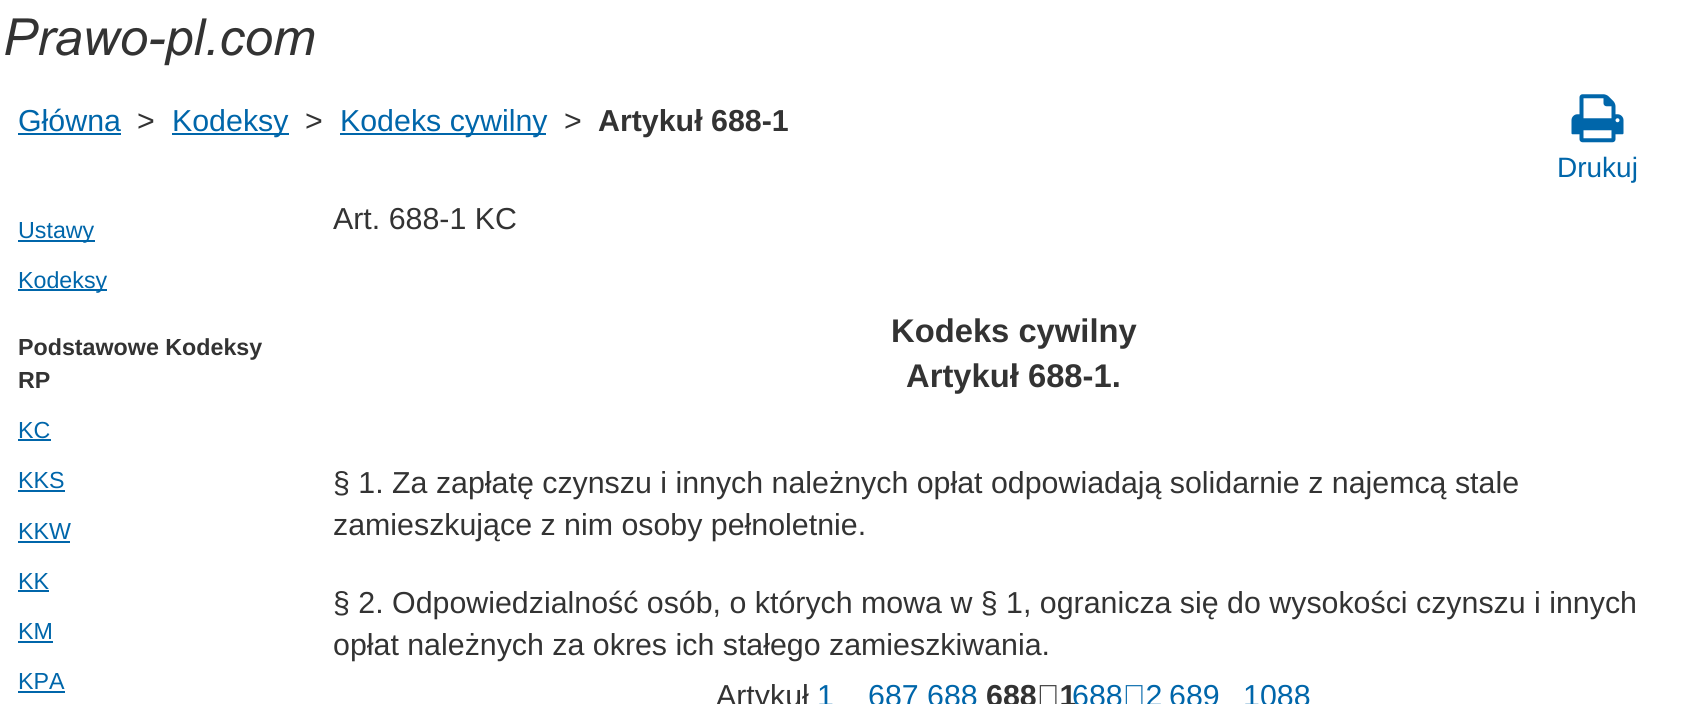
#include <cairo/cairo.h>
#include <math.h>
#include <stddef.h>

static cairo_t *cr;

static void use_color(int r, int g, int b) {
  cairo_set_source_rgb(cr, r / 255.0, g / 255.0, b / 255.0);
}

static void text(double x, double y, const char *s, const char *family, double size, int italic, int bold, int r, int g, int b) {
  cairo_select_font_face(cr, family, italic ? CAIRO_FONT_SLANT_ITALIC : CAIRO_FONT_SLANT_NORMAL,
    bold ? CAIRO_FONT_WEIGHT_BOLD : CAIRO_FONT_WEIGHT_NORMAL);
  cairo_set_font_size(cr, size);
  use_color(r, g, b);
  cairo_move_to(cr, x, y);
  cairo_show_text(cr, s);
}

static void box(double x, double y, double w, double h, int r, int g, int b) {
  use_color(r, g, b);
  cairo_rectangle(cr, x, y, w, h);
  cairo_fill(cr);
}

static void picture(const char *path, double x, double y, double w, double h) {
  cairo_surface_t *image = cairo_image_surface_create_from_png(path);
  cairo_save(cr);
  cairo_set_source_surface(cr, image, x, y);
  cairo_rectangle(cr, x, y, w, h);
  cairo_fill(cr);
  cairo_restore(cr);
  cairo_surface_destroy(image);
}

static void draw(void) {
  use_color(255, 255, 255);
  cairo_paint(cr);
  picture("img_01.png", 5, 18, 310, 48);
  box(18, 133, 103, 2, 0, 102, 170);
  box(172, 133, 117, 2, 0, 102, 170);
  box(340, 133, 206, 2, 0, 102, 170);
  picture("img_02.png", 1571, 94, 53, 49);
  box(18, 240, 77, 2, 0, 102, 170);
  box(18, 289, 89, 2, 0, 102, 170);
  box(18, 439, 33, 2, 0, 102, 170);
  box(18, 490, 47, 2, 0, 102, 170);
  box(18, 541, 52, 2, 0, 102, 170);
  box(18, 590, 31, 2, 0, 102, 170);
  box(18, 641, 35, 2, 0, 102, 170);
  box(18, 691, 47, 2, 0, 102, 170);
  text(18, 131, "Główna", "Liberation Sans", 30.35, 0, 0, 0, 102, 170);
  text(137, 131, ">", "Liberation Sans", 30.35, 0, 0, 51, 51, 51);
  text(172, 131, "Kodeksy", "Liberation Sans", 30.35, 0, 0, 0, 102, 170);
  text(305, 131, ">", "Liberation Sans", 30.35, 0, 0, 51, 51, 51);
  text(340, 131, "Kodeks cywilny", "Liberation Sans", 30.35, 0, 0, 0, 102, 170);
  text(564, 131, ">", "Liberation Sans", 30.35, 0, 0, 51, 51, 51);
  text(598, 131, "Artykuł 688-1", "Liberation Sans", 30.35, 0, 1, 51, 51, 51);
  text(1557, 177, "Drukuj", "Liberation Sans", 28, 0, 0, 0, 102, 170);
  text(18, 238, "Ustawy", "Liberation Sans", 23.25, 0, 0, 0, 102, 170);
  text(18, 288, "Kodeksy", "Liberation Sans", 23.25, 0, 0, 0, 102, 170);
  text(18, 355, "Podstawowe Kodeksy", "Liberation Sans", 23.25, 0, 1, 51, 51, 51);
  text(18, 388, "RP", "Liberation Sans", 23.25, 0, 1, 51, 51, 51);
  text(18, 438, "KC", "Liberation Sans", 23.25, 0, 0, 0, 102, 170);
  text(18, 488, "KKS", "Liberation Sans", 23.25, 0, 0, 0, 102, 170);
  text(18, 539, "KKW", "Liberation Sans", 23.25, 0, 0, 0, 102, 170);
  text(18, 589, "KK", "Liberation Sans", 23.25, 0, 0, 0, 102, 170);
  text(18, 639, "KM", "Liberation Sans", 23.25, 0, 0, 0, 102, 170);
  text(18, 689, "KPA", "Liberation Sans", 23.25, 0, 0, 0, 102, 170);
  text(333, 229, "Art. 688-1 KC", "Liberation Sans", 30.35, 0, 0, 51, 51, 51);
  text(891, 342, "Kodeks cywilny", "Liberation Sans", 32.75, 0, 1, 51, 51, 51);
  text(906, 387, "Artykuł 688-1.", "Liberation Sans", 32.75, 0, 1, 51, 51, 51);
  text(333, 493, "§ 1. Za zapłatę czynszu i innych należnych opłat odpowiadają solidarnie z najemcą stale", "Liberation Sans", 30.35, 0, 0, 51, 51, 51);
  text(333, 535, "zamieszkujące z nim osoby pełnoletnie.", "Liberation Sans", 30.35, 0, 0, 51, 51, 51);
  text(333, 613, "§ 2. Odpowiedzialność osób, o których mowa w § 1, ogranicza się do wysokości czynszu i innych", "Liberation Sans", 30.35, 0, 0, 51, 51, 51);
  text(333, 655, "opłat należnych za okres ich stałego zamieszkiwania.", "Liberation Sans", 30.35, 0, 0, 51, 51, 51);
  text(716, 706, "Artykuł", "Liberation Sans", 30.35, 0, 0, 51, 51, 51);
  text(817, 706, "1", "Liberation Sans", 30.35, 0, 0, 0, 102, 170);
  text(868, 706, "687 688", "Liberation Sans", 30.35, 0, 0, 0, 102, 170);
  text(986, 706, "688‑1", "Liberation Sans", 30.35, 0, 1, 51, 51, 51);
  text(1072, 706, "688‑2", "Liberation Sans", 30.35, 0, 0, 0, 102, 170);
  text(1169, 706, "689", "Liberation Sans", 30.35, 0, 0, 0, 102, 170);
  text(1243, 706, "1088", "Liberation Sans", 30.35, 0, 0, 0, 102, 170);
}

int main(void) {
  cairo_surface_t *surface = cairo_image_surface_create(CAIRO_FORMAT_RGB24, 1694, 704);
  cr = cairo_create(surface);
  cairo_font_options_t *options = cairo_font_options_create();
  cairo_font_options_set_hint_metrics(options, CAIRO_HINT_METRICS_OFF);
  cairo_font_options_set_hint_style(options, CAIRO_HINT_STYLE_NONE);
  cairo_set_font_options(cr, options);
  cairo_set_miter_limit(cr, 4);
  draw();
  cairo_surface_write_to_png(surface, "out.png");
  cairo_font_options_destroy(options);
  cairo_destroy(cr);
  cairo_surface_destroy(surface);
  return 0;
}
